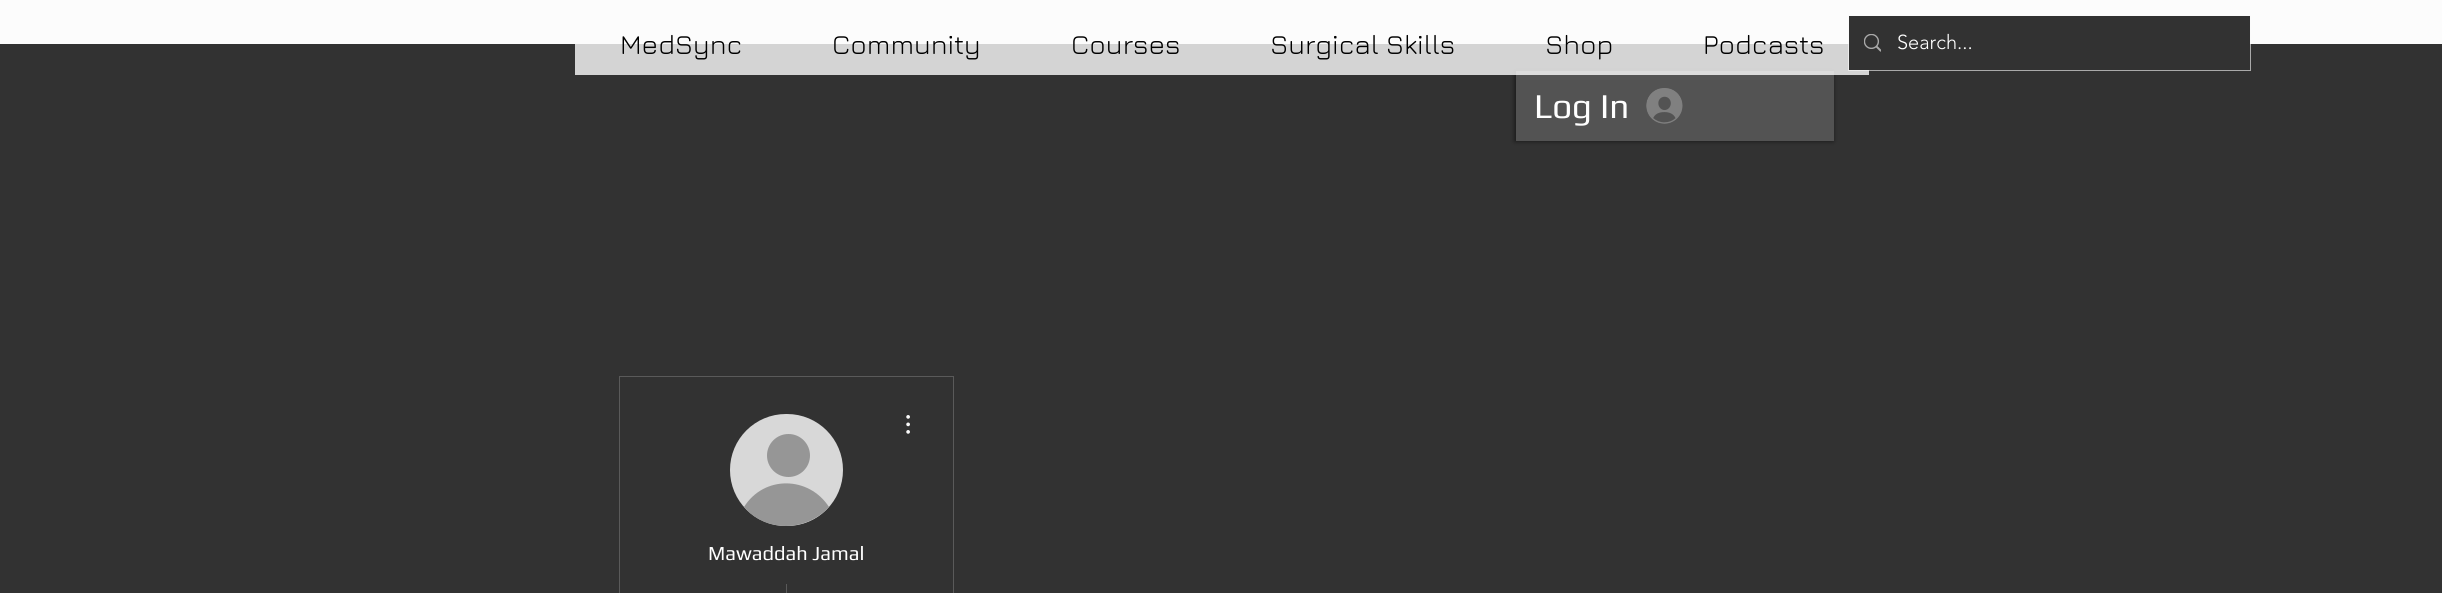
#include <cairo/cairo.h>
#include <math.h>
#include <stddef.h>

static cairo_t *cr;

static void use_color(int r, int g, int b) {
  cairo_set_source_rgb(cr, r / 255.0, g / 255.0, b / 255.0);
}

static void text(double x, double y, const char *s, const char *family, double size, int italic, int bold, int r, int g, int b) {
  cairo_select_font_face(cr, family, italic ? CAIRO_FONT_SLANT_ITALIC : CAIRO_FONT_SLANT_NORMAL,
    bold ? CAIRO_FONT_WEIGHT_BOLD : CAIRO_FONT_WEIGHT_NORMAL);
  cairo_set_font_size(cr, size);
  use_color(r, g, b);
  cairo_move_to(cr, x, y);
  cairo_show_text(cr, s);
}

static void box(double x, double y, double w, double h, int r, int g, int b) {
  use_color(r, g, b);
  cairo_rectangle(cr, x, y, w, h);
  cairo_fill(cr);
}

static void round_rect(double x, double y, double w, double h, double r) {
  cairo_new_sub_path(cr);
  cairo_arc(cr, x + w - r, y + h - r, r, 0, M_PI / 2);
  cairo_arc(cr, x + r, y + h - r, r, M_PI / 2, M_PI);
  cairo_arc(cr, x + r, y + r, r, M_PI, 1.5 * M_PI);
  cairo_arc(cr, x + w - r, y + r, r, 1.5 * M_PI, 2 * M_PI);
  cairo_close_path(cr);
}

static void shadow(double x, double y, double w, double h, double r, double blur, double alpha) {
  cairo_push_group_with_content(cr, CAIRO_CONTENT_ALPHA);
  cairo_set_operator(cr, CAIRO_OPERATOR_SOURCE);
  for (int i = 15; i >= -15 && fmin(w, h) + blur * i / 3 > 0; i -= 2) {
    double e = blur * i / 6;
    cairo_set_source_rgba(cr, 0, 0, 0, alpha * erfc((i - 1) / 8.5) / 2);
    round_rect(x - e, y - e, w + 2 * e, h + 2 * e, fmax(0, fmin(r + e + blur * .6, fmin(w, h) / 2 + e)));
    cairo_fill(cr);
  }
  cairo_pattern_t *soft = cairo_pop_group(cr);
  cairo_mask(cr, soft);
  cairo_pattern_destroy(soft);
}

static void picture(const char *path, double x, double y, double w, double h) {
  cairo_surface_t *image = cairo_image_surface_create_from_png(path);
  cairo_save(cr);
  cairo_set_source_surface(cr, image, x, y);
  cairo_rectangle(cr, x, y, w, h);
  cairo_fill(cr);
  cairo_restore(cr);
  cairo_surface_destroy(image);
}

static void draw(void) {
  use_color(50, 50, 50);
  cairo_paint(cr);
  box(0, 0, 2442, 44, 252, 252, 252);
  cairo_save(cr);
  cairo_set_fill_rule(cr, CAIRO_FILL_RULE_EVEN_ODD);
  cairo_new_path(cr);
  cairo_move_to(cr, 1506, 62);
  cairo_line_to(cr, 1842, 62);
  cairo_line_to(cr, 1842, 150);
  cairo_line_to(cr, 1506, 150);
  cairo_close_path(cr);
  cairo_move_to(cr, 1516, 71);
  cairo_line_to(cr, 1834, 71);
  cairo_line_to(cr, 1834, 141);
  cairo_line_to(cr, 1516, 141);
  cairo_close_path(cr);
  cairo_clip(cr);
  use_color(0, 0, 0);
  shadow(1515, 71, 318, 70, 0, 2.5, 0.6);
  cairo_restore(cr);
  cairo_set_source_rgba(cr, 0.333, 0.333, 0.333, 0.94);
  cairo_rectangle(cr, 1516, 71, 318, 70);
  cairo_fill(cr);
  cairo_set_source_rgba(cr, 0.98, 0.98, 0.98, 0.81);
  cairo_rectangle(cr, 575, 44, 1294, 31);
  cairo_fill(cr);
  cairo_rectangle(cr, 1848.5, 15.5, 402, 55);
  cairo_set_source_rgba(cr, 0.98, 0.98, 0.98, 0.6);
  cairo_set_line_width(cr, 1);
  cairo_stroke(cr);
  box(1849, 16, 401, 54, 50, 50, 50);
  picture("img_01.png", 1864, 34, 17, 18);
  picture("img_02.png", 1646, 88, 37, 36);
  cairo_rectangle(cr, 619.5, 376.5, 334, 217);
  use_color(90, 90, 90);
  cairo_stroke(cr);
  use_color(216, 216, 216);
  round_rect(730, 414, 113, 112, 56);
  cairo_fill(cr);
  use_color(150, 150, 150);
  cairo_arc(cr, 788.5, 455.5, 21.5, 0, 2 * M_PI);
  cairo_fill(cr);
  cairo_new_path(cr);
  cairo_move_to(cr, 786, 526);
  cairo_curve_to(cr, 802, 526, 818, 519, 829, 507);
  cairo_curve_to(cr, 809, 476, 764, 475, 744, 507);
  cairo_curve_to(cr, 754, 519, 769, 526, 786, 526);
  cairo_close_path(cr);
  cairo_fill(cr);
  picture("img_03.png", 906, 415, 4, 19);
  box(786, 584, 1, 9, 90, 90, 90);
  text(620, 54, "MedSync", "Jura", 27.5, 0, 0, 0, 0, 0);
  text(832, 54, "Community", "Jura", 27.5, 0, 0, 0, 0, 0);
  text(1071, 54, "Courses", "Jura", 27.5, 0, 0, 0, 0, 0);
  text(1270, 54, "Surgical Skills", "Jura", 27.5, 0, 0, 0, 0, 0);
  text(1545, 54, "Shop", "Jura", 27.5, 0, 0, 0, 0, 0);
  text(1703, 54, "Podcasts", "Jura", 27.5, 0, 0, 0, 0, 0);
  text(1897, 49, "Search...", "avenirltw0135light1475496 Light", 20, 0, 0, 255, 255, 255);
  text(1534, 118, "Log In", "Play", 35, 0, 0, 255, 255, 255);
  text(708, 560, "Mawaddah Jamal", "Play", 20, 0, 0, 255, 255, 255);
}

int main(void) {
  cairo_surface_t *surface = cairo_image_surface_create(CAIRO_FORMAT_RGB24, 2442, 593);
  cr = cairo_create(surface);
  cairo_font_options_t *options = cairo_font_options_create();
  cairo_font_options_set_hint_metrics(options, CAIRO_HINT_METRICS_OFF);
  cairo_font_options_set_hint_style(options, CAIRO_HINT_STYLE_NONE);
  cairo_set_font_options(cr, options);
  cairo_set_miter_limit(cr, 4);
  draw();
  cairo_surface_write_to_png(surface, "out.png");
  cairo_font_options_destroy(options);
  cairo_destroy(cr);
  cairo_surface_destroy(surface);
  return 0;
}
